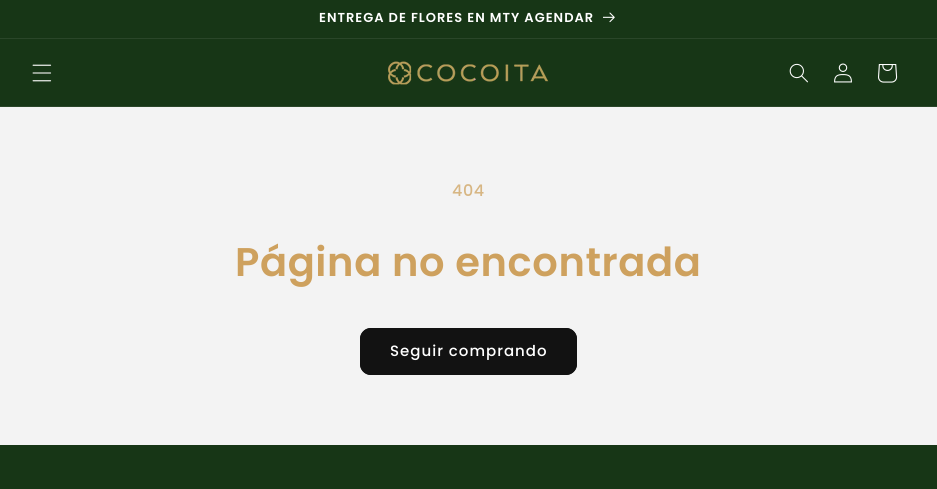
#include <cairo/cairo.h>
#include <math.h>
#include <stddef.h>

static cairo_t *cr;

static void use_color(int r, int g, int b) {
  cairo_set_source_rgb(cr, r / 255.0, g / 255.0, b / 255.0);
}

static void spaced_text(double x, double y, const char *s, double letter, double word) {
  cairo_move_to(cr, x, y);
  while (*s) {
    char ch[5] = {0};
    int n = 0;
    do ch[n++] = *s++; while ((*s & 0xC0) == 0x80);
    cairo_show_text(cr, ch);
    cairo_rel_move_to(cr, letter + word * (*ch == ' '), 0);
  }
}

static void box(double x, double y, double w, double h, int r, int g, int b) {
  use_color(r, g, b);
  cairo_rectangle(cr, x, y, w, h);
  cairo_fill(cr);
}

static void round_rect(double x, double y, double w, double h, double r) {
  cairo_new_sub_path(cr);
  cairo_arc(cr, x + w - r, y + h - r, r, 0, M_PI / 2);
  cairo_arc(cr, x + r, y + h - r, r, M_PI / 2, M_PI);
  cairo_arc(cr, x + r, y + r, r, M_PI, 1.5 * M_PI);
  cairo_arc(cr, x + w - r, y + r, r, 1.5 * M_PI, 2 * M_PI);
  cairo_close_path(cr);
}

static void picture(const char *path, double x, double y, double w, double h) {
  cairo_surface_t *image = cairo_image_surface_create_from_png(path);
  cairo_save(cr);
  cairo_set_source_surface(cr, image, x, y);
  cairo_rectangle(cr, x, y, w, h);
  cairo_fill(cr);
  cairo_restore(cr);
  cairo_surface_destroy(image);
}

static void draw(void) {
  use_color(243, 243, 243);
  cairo_paint(cr);
  box(0, 0, 937, 38, 23, 54, 22);
  box(0, 38, 937, 1, 42, 70, 41);
  picture("img_01.png", 603, 12, 12, 11);
  box(0, 39, 937, 67, 23, 54, 22);
  box(0, 106, 937, 1, 42, 70, 41);
  picture("img_02.png", 32, 64, 20, 18);
  picture("img_03.png", 388, 61, 161, 24);
  picture("img_04.png", 789, 63, 19, 20);
  picture("img_05.png", 834, 63, 18, 20);
  picture("img_06.png", 878, 64, 20, 19);
  use_color(18, 18, 18);
  round_rect(360, 328, 217, 47, 11);
  cairo_fill(cr);
  round_rect(360.5, 328.5, 216, 46, 10.5);
  cairo_set_line_width(cr, 1);
  cairo_stroke(cr);
  box(0, 445, 937, 44, 23, 54, 22);
  cairo_select_font_face(cr, "Poppins SemiBold", CAIRO_FONT_SLANT_NORMAL, CAIRO_FONT_WEIGHT_NORMAL);
  cairo_set_font_size(cr, 13);
  use_color(255, 255, 255);
  spaced_text(319, 22, "ENTREGA DE FLORES EN MTY AGENDAR", 1, 0);
  cairo_select_font_face(cr, "Poppins Medium", CAIRO_FONT_SLANT_NORMAL, CAIRO_FONT_WEIGHT_NORMAL);
  cairo_set_font_size(cr, 16);
  use_color(215, 182, 131);
  spaced_text(452, 196, "404", 0.6, 0);
  cairo_select_font_face(cr, "Poppins SemiBold", CAIRO_FONT_SLANT_NORMAL, CAIRO_FONT_WEIGHT_NORMAL);
  cairo_set_font_size(cr, 40);
  use_color(206, 161, 94);
  spaced_text(235, 276, "Página no encontrada", 0.6, 0);
  cairo_select_font_face(cr, "Poppins Medium", CAIRO_FONT_SLANT_NORMAL, CAIRO_FONT_WEIGHT_NORMAL);
  cairo_set_font_size(cr, 15);
  use_color(255, 255, 255);
  spaced_text(390, 356, "Seguir comprando", 1, 0);
}

int main(void) {
  cairo_surface_t *surface = cairo_image_surface_create(CAIRO_FORMAT_RGB24, 937, 489);
  cr = cairo_create(surface);
  cairo_font_options_t *options = cairo_font_options_create();
  cairo_font_options_set_hint_metrics(options, CAIRO_HINT_METRICS_OFF);
  cairo_font_options_set_hint_style(options, CAIRO_HINT_STYLE_NONE);
  cairo_set_font_options(cr, options);
  cairo_set_miter_limit(cr, 4);
  draw();
  cairo_surface_write_to_png(surface, "out.png");
  cairo_font_options_destroy(options);
  cairo_destroy(cr);
  cairo_surface_destroy(surface);
  return 0;
}
